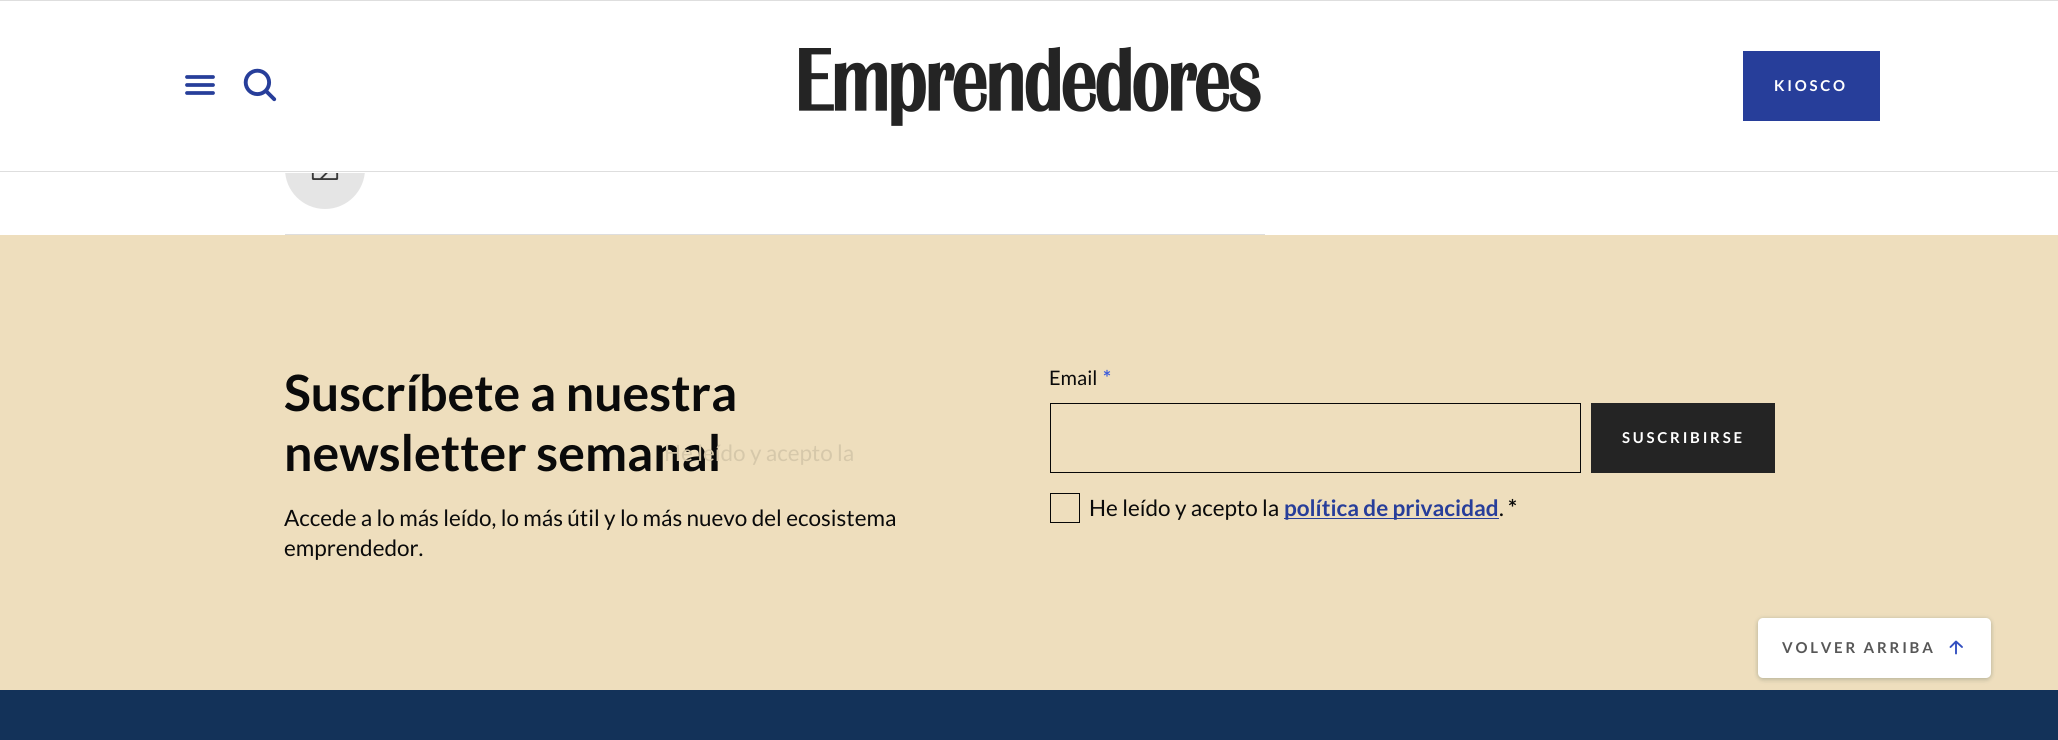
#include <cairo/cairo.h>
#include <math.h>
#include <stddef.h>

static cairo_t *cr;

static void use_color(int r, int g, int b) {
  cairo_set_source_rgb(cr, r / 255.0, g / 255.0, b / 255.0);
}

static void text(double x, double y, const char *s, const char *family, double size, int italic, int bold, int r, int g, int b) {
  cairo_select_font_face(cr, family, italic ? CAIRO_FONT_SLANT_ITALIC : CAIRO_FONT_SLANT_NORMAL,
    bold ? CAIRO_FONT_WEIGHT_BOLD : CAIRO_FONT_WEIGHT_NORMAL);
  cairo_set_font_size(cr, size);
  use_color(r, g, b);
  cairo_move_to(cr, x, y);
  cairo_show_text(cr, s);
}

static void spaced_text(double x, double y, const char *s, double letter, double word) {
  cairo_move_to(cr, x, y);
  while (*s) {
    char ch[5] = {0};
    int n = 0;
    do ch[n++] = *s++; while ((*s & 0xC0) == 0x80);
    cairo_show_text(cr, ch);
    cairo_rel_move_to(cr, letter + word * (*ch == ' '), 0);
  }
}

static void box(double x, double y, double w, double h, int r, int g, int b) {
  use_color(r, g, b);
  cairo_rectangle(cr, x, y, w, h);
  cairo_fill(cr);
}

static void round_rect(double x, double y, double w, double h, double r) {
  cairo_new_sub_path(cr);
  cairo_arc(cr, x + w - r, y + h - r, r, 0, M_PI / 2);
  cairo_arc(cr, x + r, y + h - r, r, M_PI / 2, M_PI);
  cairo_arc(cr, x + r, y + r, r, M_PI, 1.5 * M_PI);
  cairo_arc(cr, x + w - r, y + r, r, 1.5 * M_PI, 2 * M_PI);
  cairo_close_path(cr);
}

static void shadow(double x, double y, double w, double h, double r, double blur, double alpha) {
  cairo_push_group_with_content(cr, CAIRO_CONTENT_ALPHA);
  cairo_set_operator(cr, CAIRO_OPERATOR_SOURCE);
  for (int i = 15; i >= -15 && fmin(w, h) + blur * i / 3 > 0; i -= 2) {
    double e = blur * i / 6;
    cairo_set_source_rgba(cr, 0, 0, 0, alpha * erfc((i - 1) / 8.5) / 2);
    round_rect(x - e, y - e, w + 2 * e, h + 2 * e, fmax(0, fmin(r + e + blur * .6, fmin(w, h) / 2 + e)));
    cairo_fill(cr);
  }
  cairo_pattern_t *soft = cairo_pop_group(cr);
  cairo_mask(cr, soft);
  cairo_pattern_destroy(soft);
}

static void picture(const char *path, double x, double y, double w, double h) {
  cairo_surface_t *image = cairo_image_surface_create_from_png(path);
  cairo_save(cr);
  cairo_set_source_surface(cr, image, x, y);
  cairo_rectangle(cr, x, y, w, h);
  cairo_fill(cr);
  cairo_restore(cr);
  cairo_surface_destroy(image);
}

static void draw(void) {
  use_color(255, 255, 255);
  cairo_paint(cr);
  use_color(229, 229, 229);
  cairo_arc(cr, 325, 169, 40, 0, 2 * M_PI);
  cairo_fill(cr);
  box(285, 129, 80, 44, 255, 255, 255);
  box(0, 0, 2058, 1, 222, 222, 222);
  box(0, 171, 2058, 1, 222, 222, 222);
  cairo_new_path(cr);
  cairo_move_to(cr, 187, 77);
  cairo_line_to(cr, 213, 77);
  cairo_move_to(cr, 187, 85);
  cairo_line_to(cr, 213, 85);
  cairo_move_to(cr, 187, 93);
  cairo_line_to(cr, 213, 93);
  use_color(39, 62, 154);
  cairo_set_line_width(cr, 3.8);
  cairo_set_line_cap(cr, CAIRO_LINE_CAP_ROUND);
  cairo_stroke(cr);
  picture("img_01.png", 243, 68, 34, 34);
  picture("img_02.png", 799, 46, 462, 80);
  box(1743, 51, 137, 70, 39, 62, 154);
  box(285, 234, 980, 1, 222, 222, 222);
  picture("img_03.png", 311, 173, 28, 7);
  box(0, 235, 2058, 455, 238, 222, 189);
  cairo_rectangle(cr, 1050.5, 403.5, 530, 69);
  use_color(7, 7, 7);
  cairo_set_line_width(cr, 1);
  cairo_set_line_cap(cr, CAIRO_LINE_CAP_BUTT);
  cairo_stroke(cr);
  box(1591, 403, 184, 70, 36, 36, 36);
  cairo_rectangle(cr, 1050.5, 493.5, 29, 29);
  use_color(7, 7, 7);
  cairo_stroke(cr);
  box(1284, 518, 215, 1, 39, 62, 154);
  use_color(4, 37, 34);
  shadow(1758, 620, 233, 60, 5, 2.5, 0.16);
  shadow(1758, 618, 233, 60, 5, 2.5, 0.12);
  use_color(255, 255, 255);
  round_rect(1758, 618, 233, 60, 5);
  cairo_fill(cr);
  cairo_new_path(cr);
  cairo_move_to(cr, 1950.5, 647);
  cairo_line_to(cr, 1956, 641.5);
  cairo_line_to(cr, 1962, 647);
  cairo_move_to(cr, 1956, 642);
  cairo_line_to(cr, 1956, 653.5);
  use_color(51, 79, 192);
  cairo_set_line_width(cr, 1.9);
  cairo_set_line_cap(cr, CAIRO_LINE_CAP_ROUND);
  cairo_set_line_join(cr, CAIRO_LINE_JOIN_ROUND);
  cairo_stroke(cr);
  box(0, 690, 2058, 50, 19, 50, 89);
  cairo_select_font_face(cr, "Lato", CAIRO_FONT_SLANT_NORMAL, CAIRO_FONT_WEIGHT_BOLD);
  cairo_set_font_size(cr, 15);
  use_color(255, 255, 255);
  spaced_text(1774, 91, "KIOSCO", 2.75, 0);
  text(284, 411, "Suscríbete a nuestra", "Lato", 50, 0, 1, 10, 10, 10);
  text(284, 471, "newsletter semanal", "Lato", 50, 0, 1, 10, 10, 10);
  text(284, 526, "Accede a lo más leído, lo más útil y lo más nuevo del ecosistema", "Lato", 22.5, 0, 0, 10, 10, 10);
  text(284, 556, "emprendedor.", "Lato", 22.5, 0, 0, 10, 10, 10);
  text(1049, 385, "Email", "Lato", 20, 0, 0, 10, 10, 10);
  text(1103, 385, "*", "Lato", 20, 0, 1, 59, 91, 219);
  cairo_set_font_size(cr, 15);
  use_color(255, 255, 255);
  spaced_text(1622, 443, "SUSCRIBIRSE", 2.75, 0);
  text(1089, 516, "He leído y acepto la", "Lato", 22.5, 0, 0, 10, 10, 10);
  text(1284, 516, "política de privacidad", "Lato", 22.5, 0, 1, 39, 62, 154);
  text(1499, 516, ".", "Lato", 22.5, 0, 0, 10, 10, 10);
  text(1508, 516, "*", "Lato", 22.5, 0, 1, 10, 10, 10);
  text(664, 461, "He leído y acepto la", "Lato", 22.5, 0, 0, 214, 200, 170);
  cairo_select_font_face(cr, "Lato", CAIRO_FONT_SLANT_NORMAL, CAIRO_FONT_WEIGHT_BOLD);
  cairo_set_font_size(cr, 15);
  use_color(87, 87, 87);
  spaced_text(1782, 653, "VOLVER ARRIBA", 2.75, 0);
}

int main(void) {
  cairo_surface_t *surface = cairo_image_surface_create(CAIRO_FORMAT_RGB24, 2058, 740);
  cr = cairo_create(surface);
  cairo_font_options_t *options = cairo_font_options_create();
  cairo_font_options_set_hint_metrics(options, CAIRO_HINT_METRICS_OFF);
  cairo_font_options_set_hint_style(options, CAIRO_HINT_STYLE_NONE);
  cairo_set_font_options(cr, options);
  cairo_set_miter_limit(cr, 4);
  draw();
  cairo_surface_write_to_png(surface, "out.png");
  cairo_font_options_destroy(options);
  cairo_destroy(cr);
  cairo_surface_destroy(surface);
  return 0;
}
